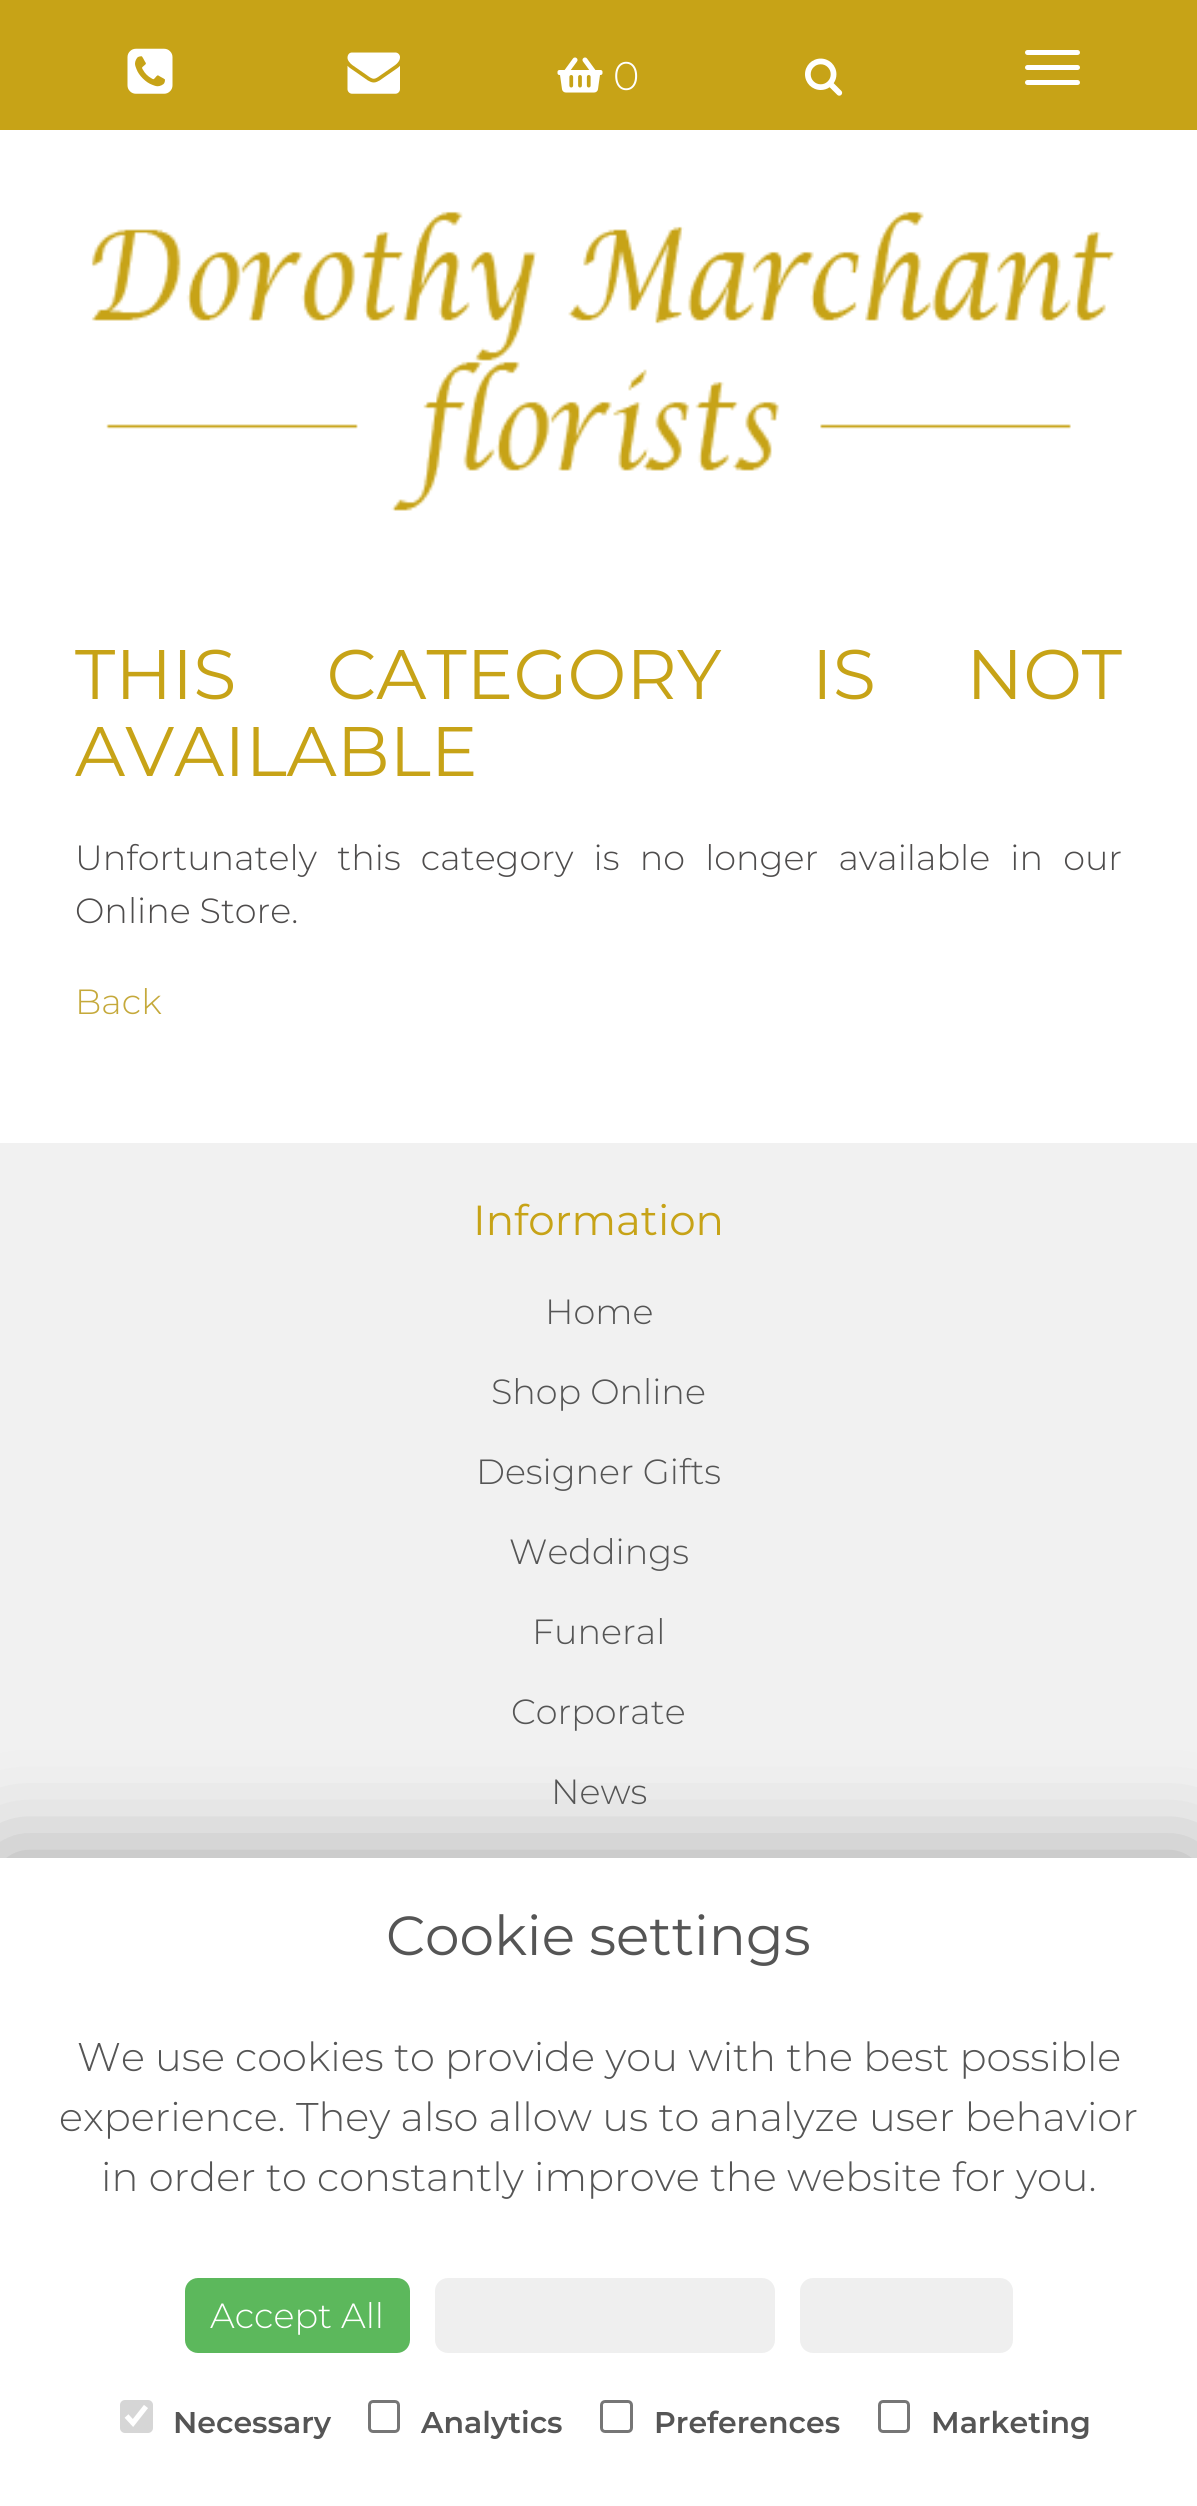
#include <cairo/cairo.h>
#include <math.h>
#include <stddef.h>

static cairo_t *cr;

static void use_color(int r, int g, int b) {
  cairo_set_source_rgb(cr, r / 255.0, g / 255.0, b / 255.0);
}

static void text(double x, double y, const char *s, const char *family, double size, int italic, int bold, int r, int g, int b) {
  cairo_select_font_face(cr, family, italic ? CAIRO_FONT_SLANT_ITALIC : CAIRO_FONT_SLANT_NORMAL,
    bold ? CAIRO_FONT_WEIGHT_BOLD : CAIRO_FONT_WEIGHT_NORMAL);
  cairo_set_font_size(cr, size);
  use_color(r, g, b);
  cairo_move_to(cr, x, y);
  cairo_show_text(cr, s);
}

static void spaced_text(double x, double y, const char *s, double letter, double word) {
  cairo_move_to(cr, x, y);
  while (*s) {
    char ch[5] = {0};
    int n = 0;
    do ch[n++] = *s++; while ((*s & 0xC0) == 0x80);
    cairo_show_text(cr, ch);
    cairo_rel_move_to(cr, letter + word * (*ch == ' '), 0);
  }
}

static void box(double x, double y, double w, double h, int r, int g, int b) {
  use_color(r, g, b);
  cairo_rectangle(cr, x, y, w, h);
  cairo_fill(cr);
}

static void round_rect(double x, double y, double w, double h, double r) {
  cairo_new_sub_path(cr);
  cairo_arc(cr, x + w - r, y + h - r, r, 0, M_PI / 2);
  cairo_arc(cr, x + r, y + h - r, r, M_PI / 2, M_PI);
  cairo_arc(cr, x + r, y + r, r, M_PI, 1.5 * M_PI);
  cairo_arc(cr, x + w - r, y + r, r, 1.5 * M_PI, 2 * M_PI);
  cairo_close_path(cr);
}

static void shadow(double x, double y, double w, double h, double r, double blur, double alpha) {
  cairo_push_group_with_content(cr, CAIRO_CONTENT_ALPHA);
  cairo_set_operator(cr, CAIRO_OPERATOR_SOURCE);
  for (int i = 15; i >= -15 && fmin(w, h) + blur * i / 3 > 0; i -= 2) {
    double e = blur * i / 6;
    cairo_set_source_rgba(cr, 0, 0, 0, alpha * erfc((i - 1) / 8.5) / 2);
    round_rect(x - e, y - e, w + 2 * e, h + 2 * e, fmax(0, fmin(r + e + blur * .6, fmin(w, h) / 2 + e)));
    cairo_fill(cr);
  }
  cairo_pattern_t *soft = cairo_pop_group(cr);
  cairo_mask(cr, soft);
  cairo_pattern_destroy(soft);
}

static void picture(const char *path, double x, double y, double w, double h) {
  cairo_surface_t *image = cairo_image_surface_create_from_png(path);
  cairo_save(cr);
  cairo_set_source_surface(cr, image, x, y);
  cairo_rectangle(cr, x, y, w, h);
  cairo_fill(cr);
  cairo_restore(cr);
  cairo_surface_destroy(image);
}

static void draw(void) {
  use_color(255, 255, 255);
  cairo_paint(cr);
  box(0, 0, 1197, 130, 199, 163, 23);
  picture("img_01.png", 127, 48, 46, 46);
  picture("img_02.png", 347, 52, 53, 42);
  picture("img_03.png", 557, 57, 46, 36);
  picture("img_04.png", 805, 58, 38, 38);
  use_color(255, 255, 255);
  round_rect(1025, 50, 55, 5, 2.5);
  cairo_fill(cr);
  round_rect(1025, 65, 55, 5, 2.5);
  cairo_fill(cr);
  round_rect(1025, 80, 55, 5, 2.5);
  cairo_fill(cr);
  picture("img_05.png", 91, 211, 1025, 300);
  box(0, 1143, 1197, 715, 241, 241, 241);
  use_color(0, 0, 0);
  shadow(0, 1858, 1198, 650, 0, 50, 0.31);
  box(0, 1858, 1197, 648, 255, 255, 255);
  use_color(92, 184, 92);
  round_rect(185, 2278, 225, 75, 13);
  cairo_fill(cr);
  use_color(239, 239, 239);
  round_rect(435, 2278, 340, 75, 13);
  cairo_fill(cr);
  round_rect(800, 2278, 213, 75, 13);
  cairo_fill(cr);
  use_color(214, 214, 214);
  round_rect(120, 2400, 33, 33, 5);
  cairo_fill(cr);
  cairo_new_path(cr);
  cairo_move_to(cr, 126.5, 2416);
  cairo_line_to(cr, 133, 2423);
  cairo_line_to(cr, 146, 2406.5);
  use_color(255, 255, 255);
  cairo_set_line_width(cr, 5.2);
  cairo_stroke(cr);
  round_rect(369.5, 2401.5, 29, 30, 3.5);
  use_color(118, 118, 118);
  cairo_set_line_width(cr, 3);
  cairo_stroke(cr);
  round_rect(601.5, 2401.5, 30, 30, 3.5);
  cairo_stroke(cr);
  round_rect(879.5, 2401.5, 29, 30, 3.5);
  cairo_stroke(cr);
  text(613, 90, "0", "Montserrat Light", 40, 0, 0, 255, 255, 255);
  cairo_select_font_face(cr, "Montserrat", CAIRO_FONT_SLANT_NORMAL, CAIRO_FONT_WEIGHT_NORMAL);
  cairo_set_font_size(cr, 70);
  use_color(199, 163, 23);
  spaced_text(75, 699, "THIS CATEGORY IS NOT", 0, 72);
  text(75, 776, "AVAILABLE", "Montserrat", 70, 0, 0, 199, 163, 23);
  cairo_select_font_face(cr, "Montserrat Light", CAIRO_FONT_SLANT_NORMAL, CAIRO_FONT_WEIGHT_NORMAL);
  cairo_set_font_size(cr, 35);
  use_color(78, 76, 76);
  spaced_text(75, 870, "Unfortunately this category is no longer available in our", 0, 11.25);
  text(75, 923, "Online Store.", "Montserrat Light", 35, 0, 0, 78, 76, 76);
  text(75, 1014, "Back", "Montserrat Light", 35, 0, 0, 197, 169, 59);
  text(473, 1235, "Information", "Montserrat", 42, 0, 0, 199, 163, 23);
  text(545, 1324, "Home", "Montserrat Light", 35, 0, 0, 85, 85, 85);
  text(491, 1404, "Shop Online", "Montserrat Light", 35, 0, 0, 85, 85, 85);
  text(476, 1484, "Designer Gifts", "Montserrat Light", 35, 0, 0, 85, 85, 85);
  text(509, 1564, "Weddings", "Montserrat Light", 35, 0, 0, 85, 85, 85);
  text(532, 1644, "Funeral", "Montserrat Light", 35, 0, 0, 85, 85, 85);
  text(511, 1724, "Corporate", "Montserrat Light", 35, 0, 0, 85, 85, 85);
  text(551, 1804, "News", "Montserrat Light", 35, 0, 0, 85, 85, 85);
  text(386, 1955, "Cookie settings", "Montserrat", 55, 0, 0, 85, 85, 85);
  text(77, 2071, "We use cookies to provide you with the best possible", "Montserrat Light", 40, 0, 0, 85, 85, 85);
  text(59, 2131, "experience. They also allow us to analyze user behavior", "Montserrat Light", 40, 0, 0, 85, 85, 85);
  text(101, 2191, "in order to constantly improve the website for you.", "Montserrat Light", 40, 0, 0, 85, 85, 85);
  text(210, 2328, "Accept All", "Montserrat Light", 35, 0, 0, 255, 255, 255);
  text(173, 2433, "Necessary", "Montserrat SemiBold", 30, 0, 0, 85, 85, 85);
  text(421, 2433, "Analytics", "Montserrat SemiBold", 30, 0, 0, 85, 85, 85);
  text(654, 2433, "Preferences", "Montserrat SemiBold", 30, 0, 0, 85, 85, 85);
  text(931, 2433, "Marketing", "Montserrat SemiBold", 30, 0, 0, 85, 85, 85);
}

int main(void) {
  cairo_surface_t *surface = cairo_image_surface_create(CAIRO_FORMAT_RGB24, 1197, 2506);
  cr = cairo_create(surface);
  cairo_font_options_t *options = cairo_font_options_create();
  cairo_font_options_set_hint_metrics(options, CAIRO_HINT_METRICS_OFF);
  cairo_font_options_set_hint_style(options, CAIRO_HINT_STYLE_NONE);
  cairo_set_font_options(cr, options);
  cairo_set_miter_limit(cr, 4);
  draw();
  cairo_surface_write_to_png(surface, "out.png");
  cairo_font_options_destroy(options);
  cairo_destroy(cr);
  cairo_surface_destroy(surface);
  return 0;
}
